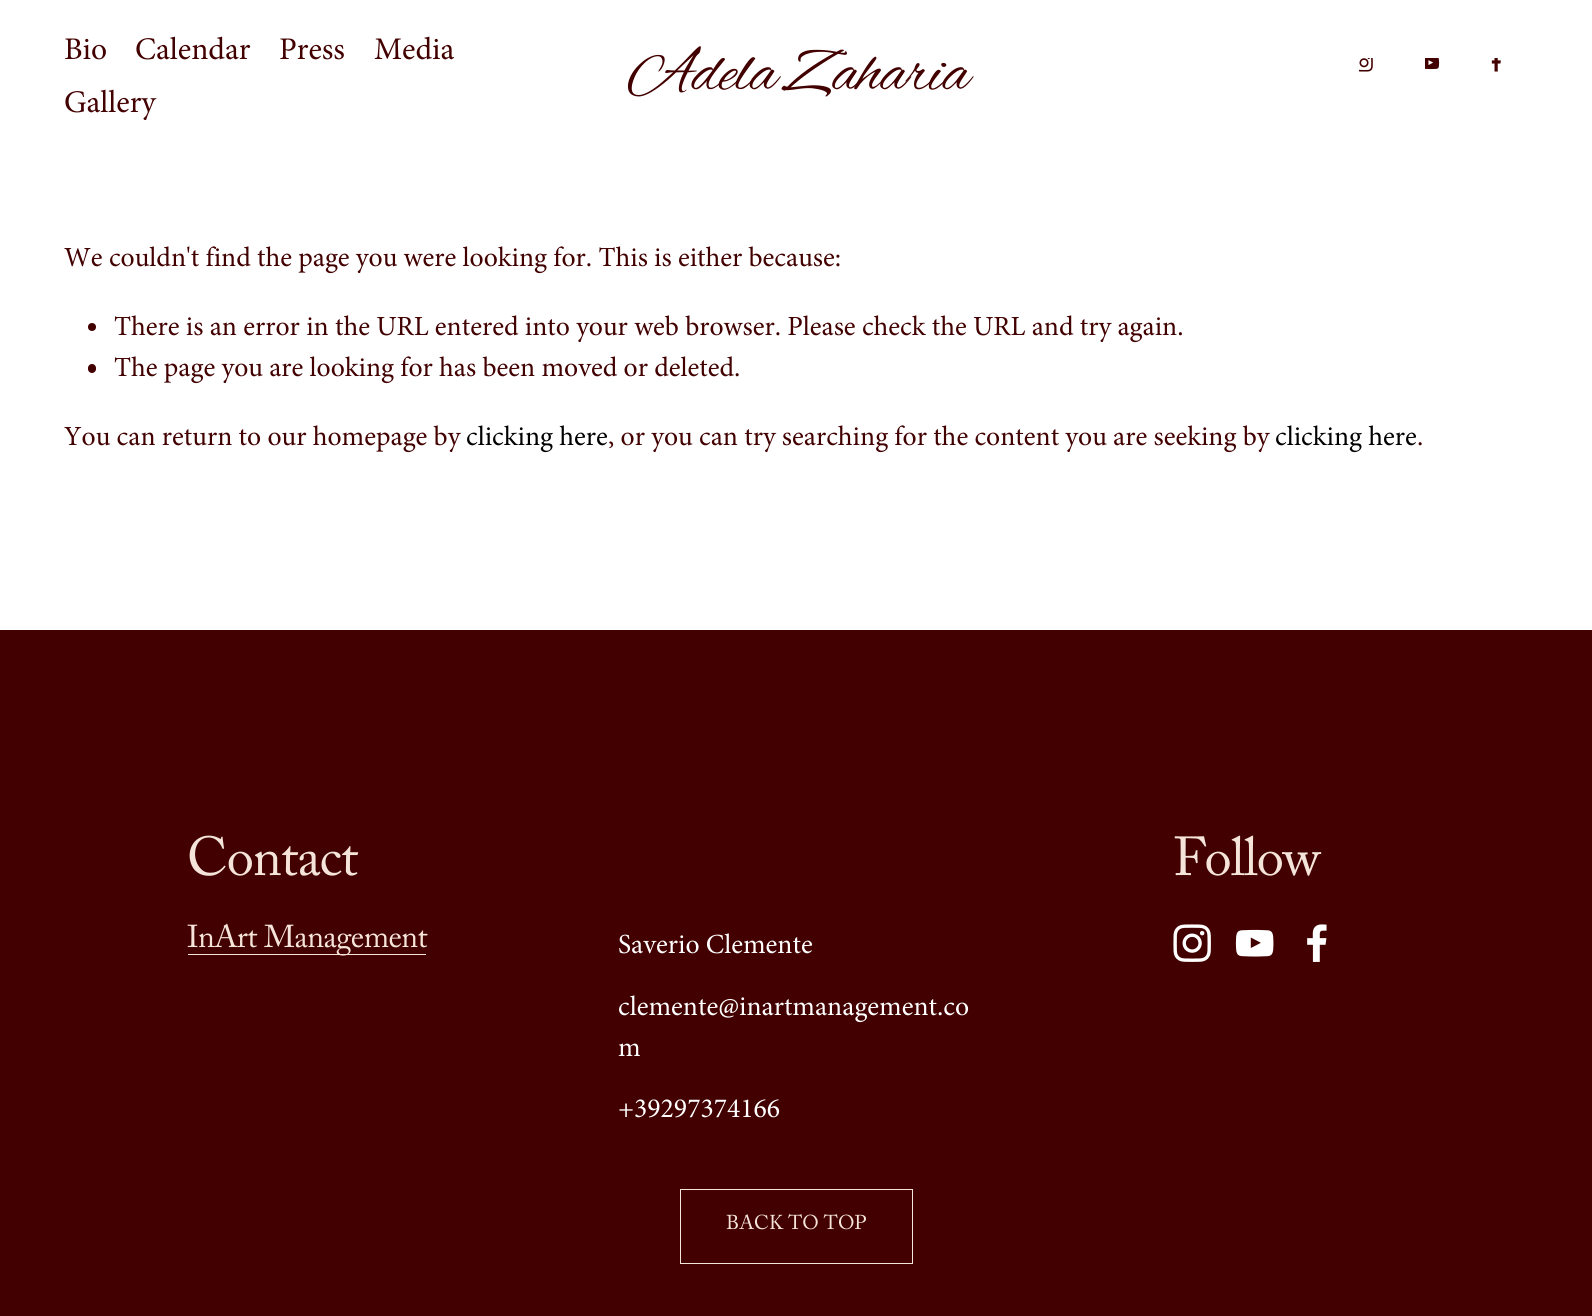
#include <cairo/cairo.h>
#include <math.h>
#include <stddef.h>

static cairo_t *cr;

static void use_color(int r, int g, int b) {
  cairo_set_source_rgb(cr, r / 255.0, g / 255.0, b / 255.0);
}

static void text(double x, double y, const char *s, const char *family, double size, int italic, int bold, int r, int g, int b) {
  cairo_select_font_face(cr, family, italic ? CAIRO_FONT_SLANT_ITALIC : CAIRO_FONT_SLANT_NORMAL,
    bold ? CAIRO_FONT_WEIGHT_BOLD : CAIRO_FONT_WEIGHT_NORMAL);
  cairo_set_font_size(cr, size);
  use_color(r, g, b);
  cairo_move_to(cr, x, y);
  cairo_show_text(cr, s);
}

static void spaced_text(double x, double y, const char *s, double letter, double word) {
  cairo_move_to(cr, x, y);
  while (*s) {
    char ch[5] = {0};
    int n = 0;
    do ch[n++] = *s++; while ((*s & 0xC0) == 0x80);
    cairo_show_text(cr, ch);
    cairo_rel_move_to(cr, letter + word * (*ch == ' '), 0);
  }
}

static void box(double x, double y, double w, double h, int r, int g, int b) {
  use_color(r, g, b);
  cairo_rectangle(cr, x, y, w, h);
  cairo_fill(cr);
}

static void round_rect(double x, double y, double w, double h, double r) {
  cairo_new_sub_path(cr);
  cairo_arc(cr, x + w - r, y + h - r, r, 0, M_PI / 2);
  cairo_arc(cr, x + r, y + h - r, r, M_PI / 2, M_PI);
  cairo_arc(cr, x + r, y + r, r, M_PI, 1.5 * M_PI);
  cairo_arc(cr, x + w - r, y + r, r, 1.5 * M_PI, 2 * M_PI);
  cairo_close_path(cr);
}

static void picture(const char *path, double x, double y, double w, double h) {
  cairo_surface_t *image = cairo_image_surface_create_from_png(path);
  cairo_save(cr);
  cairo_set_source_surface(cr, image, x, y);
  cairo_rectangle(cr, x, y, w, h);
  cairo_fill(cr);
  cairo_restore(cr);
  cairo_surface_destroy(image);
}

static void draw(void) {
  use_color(255, 255, 255);
  cairo_paint(cr);
  picture("img_01.png", 1359, 58, 14, 14);
  picture("img_02.png", 1425, 58, 15, 12);
  picture("img_03.png", 1491, 58, 10, 14);
  use_color(66, 0, 0);
  cairo_arc(cr, 92, 327, 4, 0, 2 * M_PI);
  cairo_fill(cr);
  round_rect(88, 364, 8, 9, 4);
  cairo_fill(cr);
  box(0, 630, 1592, 686, 66, 0, 0);
  box(188, 954, 238, 1, 244, 228, 217);
  picture("img_04.png", 1173, 924, 38, 38);
  picture("img_05.png", 1235, 929, 39, 28);
  picture("img_06.png", 1307, 924, 20, 38);
  cairo_rectangle(cr, 680.5, 1189.5, 232, 74);
  cairo_set_line_width(cr, 1);
  cairo_stroke(cr);
  text(64, 59, "Bio", "Minion", 31.5, 0, 0, 66, 0, 0);
  text(135, 59, "Calendar", "Minion", 31.5, 0, 0, 66, 0, 0);
  text(279, 59, "Press", "Minion", 31.5, 0, 0, 66, 0, 0);
  text(374, 59, "Media", "Minion", 31.5, 0, 0, 66, 0, 0);
  text(64, 112, "Gallery", "Minion", 31.5, 0, 0, 66, 0, 0);
  cairo_select_font_face(cr, "Alex Brush", CAIRO_FONT_SLANT_NORMAL, CAIRO_FONT_WEIGHT_NORMAL);
  cairo_set_font_size(cr, 64);
  spaced_text(628, 89, "Adela Zaharia", -1.25, 0);
  text(64, 266, "We couldn't find the page you were looking for. This is either because:", "Minion", 27.65, 0, 0, 66, 0, 0);
  text(114, 335, "There is an error in the URL entered into your web browser. Please check the URL and try again.", "Minion", 27.65, 0, 0, 66, 0, 0);
  text(114, 376, "The page you are looking for has been moved or deleted.", "Minion", 27.65, 0, 0, 66, 0, 0);
  text(64, 445, "You can return to our homepage by", "Minion", 27.65, 0, 0, 66, 0, 0);
  text(466, 445, "clicking here", "Minion", 27.65, 0, 0, 0, 0, 0);
  text(608, 445, ", or you can try searching for the content you are seeking by", "Minion", 27.65, 0, 0, 66, 0, 0);
  text(1275, 445, "clicking here", "Minion", 27.65, 0, 0, 0, 0, 0);
  text(1417, 445, ".", "Minion", 27.65, 0, 0, 66, 0, 0);
  cairo_select_font_face(cr, "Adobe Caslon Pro", CAIRO_FONT_SLANT_NORMAL, CAIRO_FONT_WEIGHT_NORMAL);
  cairo_set_font_size(cr, 54.5);
  use_color(244, 228, 217);
  spaced_text(187, 875, "Contact", -1, 0);
  spaced_text(1173, 875, "Follow", -1, 0);
  cairo_set_font_size(cr, 31.5);
  spaced_text(187, 947, "InArt Management", -0.6, 0);
  text(618, 953, "Saverio Clemente", "Minion", 27.65, 0, 0, 255, 255, 255);
  text(618, 1015, "clemente@inartmanagement.co", "Minion", 27.65, 0, 0, 255, 255, 255);
  text(618, 1056, "m", "Minion", 27.65, 0, 0, 255, 255, 255);
  text(618, 1117, "+39297374166", "Minion", 27.65, 0, 0, 255, 255, 255);
  text(726, 1229, "BACK TO TOP", "Adobe Caslon Pro", 20, 0, 0, 244, 228, 217);
}

int main(void) {
  cairo_surface_t *surface = cairo_image_surface_create(CAIRO_FORMAT_RGB24, 1592, 1316);
  cr = cairo_create(surface);
  cairo_font_options_t *options = cairo_font_options_create();
  cairo_font_options_set_hint_metrics(options, CAIRO_HINT_METRICS_OFF);
  cairo_font_options_set_hint_style(options, CAIRO_HINT_STYLE_NONE);
  cairo_set_font_options(cr, options);
  cairo_set_miter_limit(cr, 4);
  draw();
  cairo_surface_write_to_png(surface, "out.png");
  cairo_font_options_destroy(options);
  cairo_destroy(cr);
  cairo_surface_destroy(surface);
  return 0;
}
